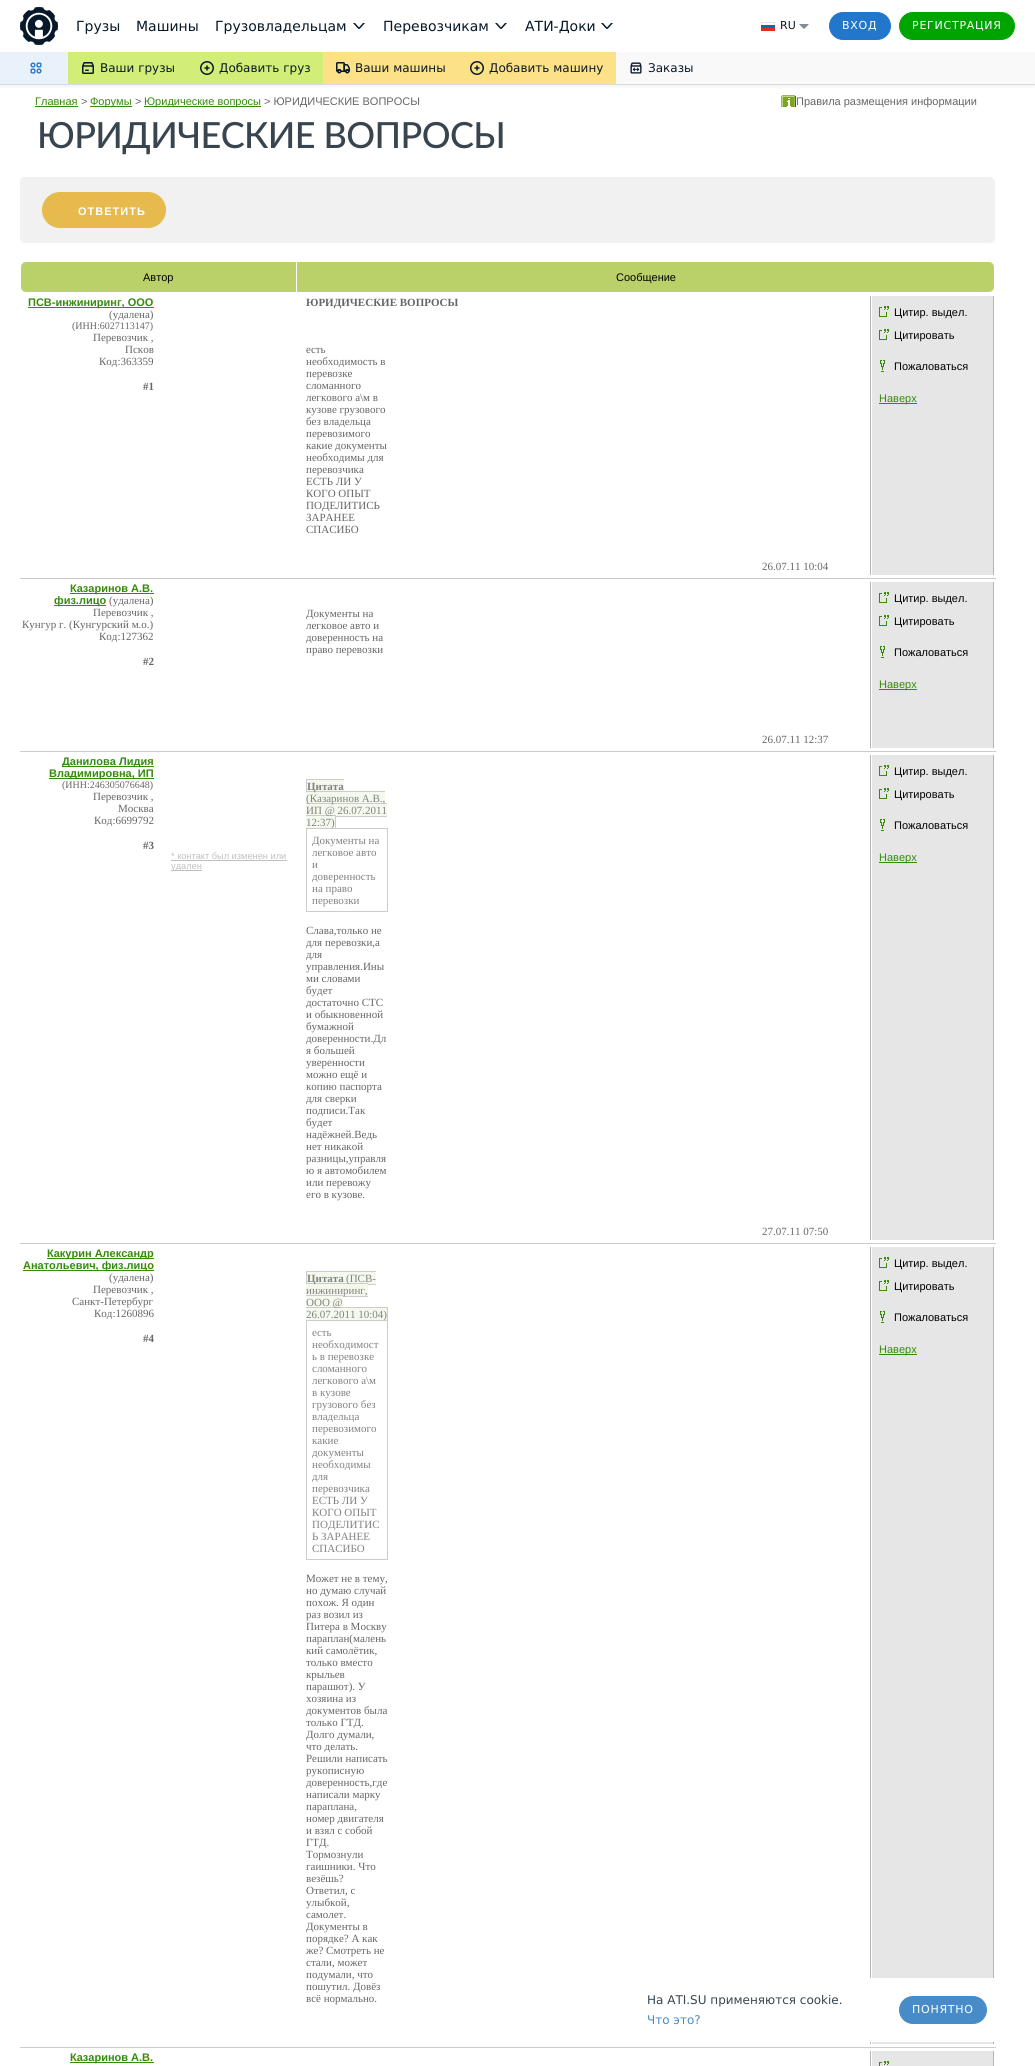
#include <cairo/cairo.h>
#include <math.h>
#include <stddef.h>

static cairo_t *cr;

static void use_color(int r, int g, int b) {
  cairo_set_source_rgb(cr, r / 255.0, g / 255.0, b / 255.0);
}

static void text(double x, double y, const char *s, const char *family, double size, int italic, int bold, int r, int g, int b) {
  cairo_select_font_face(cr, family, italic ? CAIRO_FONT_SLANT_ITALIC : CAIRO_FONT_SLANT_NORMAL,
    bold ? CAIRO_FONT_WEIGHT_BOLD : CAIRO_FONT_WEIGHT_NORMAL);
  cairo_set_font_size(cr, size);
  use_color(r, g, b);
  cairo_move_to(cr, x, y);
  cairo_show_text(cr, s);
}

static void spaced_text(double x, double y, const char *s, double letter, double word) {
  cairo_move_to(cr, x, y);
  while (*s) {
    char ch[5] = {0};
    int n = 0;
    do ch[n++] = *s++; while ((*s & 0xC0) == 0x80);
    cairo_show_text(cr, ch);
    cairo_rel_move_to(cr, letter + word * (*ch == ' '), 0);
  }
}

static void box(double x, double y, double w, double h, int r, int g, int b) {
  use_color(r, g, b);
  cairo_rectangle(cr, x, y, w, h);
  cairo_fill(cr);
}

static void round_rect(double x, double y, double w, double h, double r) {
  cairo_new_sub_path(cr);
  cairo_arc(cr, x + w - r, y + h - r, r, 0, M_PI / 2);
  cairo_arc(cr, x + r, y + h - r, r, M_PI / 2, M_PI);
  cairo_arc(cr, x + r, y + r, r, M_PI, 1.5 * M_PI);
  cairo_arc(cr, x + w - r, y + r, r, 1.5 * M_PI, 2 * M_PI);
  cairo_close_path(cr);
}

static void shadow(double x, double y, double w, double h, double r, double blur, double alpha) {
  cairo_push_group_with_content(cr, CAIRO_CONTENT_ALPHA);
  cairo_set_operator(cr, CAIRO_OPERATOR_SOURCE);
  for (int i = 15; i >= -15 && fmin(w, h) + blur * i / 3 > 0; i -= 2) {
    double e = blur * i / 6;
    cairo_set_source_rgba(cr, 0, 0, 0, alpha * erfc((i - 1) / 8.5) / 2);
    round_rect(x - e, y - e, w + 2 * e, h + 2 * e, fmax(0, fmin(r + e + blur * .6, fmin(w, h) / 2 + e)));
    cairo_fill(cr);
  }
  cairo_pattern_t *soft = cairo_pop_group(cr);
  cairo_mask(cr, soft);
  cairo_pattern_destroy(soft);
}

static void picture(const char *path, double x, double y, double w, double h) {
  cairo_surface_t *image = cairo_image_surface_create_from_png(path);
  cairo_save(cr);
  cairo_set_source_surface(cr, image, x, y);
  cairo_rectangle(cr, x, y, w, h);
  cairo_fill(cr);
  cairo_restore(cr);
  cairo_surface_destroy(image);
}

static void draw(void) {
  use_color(255, 255, 255);
  cairo_paint(cr);
  picture("img_01.png", 20, 7, 38, 38);
  picture("img_02.png", 353, 23, 12, 6);
  picture("img_02.png", 495, 23, 12, 6);
  picture("img_02.png", 601, 23, 12, 6);
  picture("img_03.png", 761, 22, 14, 9);
  picture("img_04.png", 799, 24, 10, 5);
  use_color(34, 119, 204);
  round_rect(829.5, 12.5, 61, 27, 13.5);
  cairo_fill_preserve(cr);
  cairo_set_line_width(cr, 1);
  cairo_stroke(cr);
  use_color(0, 164, 0);
  round_rect(899.5, 12.5, 115, 27, 13.5);
  cairo_fill_preserve(cr);
  cairo_stroke(cr);
  box(0, 84, 1035, 1, 230, 232, 234);
  use_color(7, 24, 41);
  shadow(0, 54, 1035, 32, 0, 2, 0.08);
  box(616, 52, 419, 32, 249, 249, 250);
  box(0, 52, 68, 32, 233, 241, 250);
  picture("img_05.png", 30, 62, 12, 12);
  box(68, 52, 255, 32, 211, 238, 120);
  picture("img_06.png", 82, 62, 12, 12);
  picture("img_07.png", 200, 61, 14, 14);
  box(323, 52, 293, 32, 253, 225, 134);
  picture("img_08.png", 336, 62, 14, 12);
  picture("img_09.png", 470, 61, 14, 14);
  picture("img_10.png", 630, 62, 12, 12);
  picture("img_21.png", 870, 1247, 124, 797);
  use_color(255, 255, 255);
  round_rect(623, 1978, 388, 64, 6);
  cairo_fill(cr);
  use_color(71, 140, 200);
  round_rect(899.5, 1996.5, 87, 27, 13.5);
  cairo_fill_preserve(cr);
  cairo_stroke(cr);
  box(35, 106, 43, 1, 53, 139, 10);
  box(90, 106, 42, 1, 53, 139, 10);
  box(144, 106, 117, 1, 53, 139, 10);
  picture("img_11.png", 781, 95, 15, 12);
  use_color(241, 241, 241);
  round_rect(20, 177, 975, 66, 5);
  cairo_fill(cr);
  use_color(230, 186, 77);
  round_rect(42.5, 192.5, 123, 35, 17.5);
  cairo_fill_preserve(cr);
  cairo_stroke(cr);
  box(21, 262, 275, 30, 186, 209, 105);
  picture("img_12.png", 21, 262, 5, 5);
  picture("img_13.png", 21, 287, 5, 5);
  box(297, 262, 697, 30, 186, 209, 105);
  picture("img_14.png", 989, 262, 5, 5);
  picture("img_15.png", 989, 287, 5, 5);
  box(20, 578, 976, 1, 204, 204, 204);
  picture("img_16.png", 870, 296, 124, 279);
  box(28, 307, 126, 1, 53, 139, 10);
  picture("img_17.png", 879, 306, 10, 11);
  picture("img_17.png", 879, 329, 10, 11);
  picture("img_18.png", 880, 360, 5, 12);
  box(879, 403, 38, 1, 53, 139, 10);
  box(20, 751, 976, 1, 204, 204, 204);
  picture("img_19.png", 870, 582, 124, 166);
  box(70, 593, 84, 1, 53, 139, 10);
  box(54, 605, 52, 1, 53, 139, 10);
  picture("img_17.png", 879, 592, 10, 11);
  picture("img_17.png", 879, 615, 10, 11);
  picture("img_18.png", 880, 646, 5, 12);
  box(879, 689, 38, 1, 53, 139, 10);
  box(20, 1243, 976, 1, 204, 204, 204);
  picture("img_20.png", 870, 755, 124, 485);
  box(62, 766, 92, 1, 53, 139, 10);
  box(49, 778, 105, 1, 53, 139, 10);
  box(171, 860, 116, 1, 192, 192, 192);
  box(171, 870, 31, 1, 192, 192, 192);
  box(307, 780, 37, 11, 245, 248, 236);
  box(306, 779, 38, 1, 204, 204, 204);
  box(306, 779, 1, 14, 204, 204, 204);
  box(306, 791, 79, 1, 204, 204, 204);
  box(306, 792, 79, 11, 245, 248, 236);
  box(306, 803, 81, 1, 204, 204, 204);
  box(306, 804, 81, 12, 245, 248, 236);
  box(336, 816, 51, 1, 204, 204, 204);
  box(306, 815, 30, 1, 204, 204, 204);
  box(306, 816, 29, 12, 245, 248, 236);
  cairo_rectangle(cr, 306.5, 828.5, 81, 83);
  use_color(204, 204, 204);
  cairo_stroke(cr);
  box(335, 815, 1, 14, 204, 204, 204);
  picture("img_17.png", 879, 765, 10, 11);
  picture("img_17.png", 879, 788, 10, 11);
  picture("img_18.png", 880, 819, 5, 12);
  box(879, 862, 38, 1, 53, 139, 10);
  box(20, 2047, 976, 1, 204, 204, 204);
  box(47, 1258, 107, 1, 53, 139, 10);
  box(23, 1270, 131, 1, 53, 139, 10);
  box(307, 1272, 37, 11, 245, 248, 236);
  box(306, 1271, 70, 1, 204, 204, 204);
  box(306, 1271, 1, 14, 204, 204, 204);
  box(344, 1272, 32, 12, 245, 248, 236);
  box(306, 1283, 62, 1, 204, 204, 204);
  box(368, 1284, 8, 1, 204, 204, 204);
  box(306, 1284, 62, 12, 245, 248, 236);
  box(343, 1296, 25, 1, 204, 204, 204);
  box(306, 1295, 37, 1, 204, 204, 204);
  box(306, 1296, 37, 11, 245, 248, 236);
  box(306, 1307, 82, 1, 204, 204, 204);
  box(306, 1308, 81, 12, 245, 248, 236);
  cairo_rectangle(cr, 306.5, 1320.5, 81, 239);
  use_color(204, 204, 204);
  cairo_stroke(cr);
  box(387, 1307, 1, 14, 204, 204, 204);
  picture("img_17.png", 879, 1257, 10, 11);
  picture("img_17.png", 879, 1280, 10, 11);
  picture("img_18.png", 880, 1311, 5, 12);
  box(879, 1354, 38, 1, 53, 139, 10);
  picture("img_22.png", 870, 2051, 124, 15);
  box(70, 2062, 84, 1, 53, 139, 10);
  picture("img_23.png", 879, 2061, 10, 5);
  text(76, 31, "Грузы", "DejaVu Sans", 14, 0, 0, 7, 24, 41);
  text(136, 31, "Машины", "DejaVu Sans", 14, 0, 0, 7, 24, 41);
  text(215, 31, "Грузовладельцам", "DejaVu Sans", 14, 0, 0, 7, 24, 41);
  text(383, 31, "Перевозчикам", "DejaVu Sans", 14, 0, 0, 7, 24, 41);
  text(525, 31, "АТИ-Доки", "DejaVu Sans", 14, 0, 0, 7, 24, 41);
  text(780, 29, "RU", "DejaVu Sans", 11, 0, 0, 7, 24, 41);
  use_color(255, 255, 255);
  spaced_text(842, 29, "ВХОД", 0.75, 0);
  spaced_text(912, 29, "РЕГИСТРАЦИЯ", 0.75, 0);
  text(100, 72, "Ваши грузы", "DejaVu Sans", 12, 0, 0, 7, 24, 41);
  text(219, 72, "Добавить груз", "DejaVu Sans", 12, 0, 0, 7, 24, 41);
  text(355, 72, "Ваши машины", "DejaVu Sans", 12, 0, 0, 7, 24, 41);
  text(489, 72, "Добавить машину", "DejaVu Sans", 12, 0, 0, 7, 24, 41);
  text(648, 72, "Заказы", "DejaVu Sans", 12, 0, 0, 7, 24, 41);
  text(647, 2004, "На ATI.SU применяются cookie.", "DejaVu Sans", 12, 0, 0, 56, 68, 78);
  text(647, 2024, "Что это?", "DejaVu Sans", 12, 0, 0, 71, 140, 200);
  cairo_set_font_size(cr, 11);
  use_color(255, 255, 255);
  spaced_text(912, 2013, "ПОНЯТНО", 0.75, 0);
  text(35, 105, "Главная", "Liberation Sans", 11, 0, 0, 53, 139, 10);
  text(81, 105, ">", "Liberation Sans", 11, 0, 0, 102, 102, 102);
  text(90, 105, "Форумы", "Liberation Sans", 11, 0, 0, 53, 139, 10);
  text(135, 105, ">", "Liberation Sans", 11, 0, 0, 102, 102, 102);
  text(144, 105, "Юридические вопросы", "Liberation Sans", 11, 0, 0, 53, 139, 10);
  text(264, 105, "> ЮРИДИЧЕСКИЕ ВОПРОСЫ", "Liberation Sans", 11, 0, 0, 102, 102, 102);
  text(796, 105, "Правила размещения информации", "Liberation Sans", 11, 0, 0, 102, 102, 102);
  cairo_select_font_face(cr, "Lato Medium", CAIRO_FONT_SLANT_NORMAL, CAIRO_FONT_WEIGHT_NORMAL);
  cairo_set_font_size(cr, 36);
  use_color(56, 68, 78);
  spaced_text(37, 148, "ЮРИДИЧЕСКИЕ ВОПРОСЫ", -0.6, 0);
  cairo_select_font_face(cr, "Liberation Sans", CAIRO_FONT_SLANT_NORMAL, CAIRO_FONT_WEIGHT_BOLD);
  cairo_set_font_size(cr, 11);
  use_color(255, 255, 255);
  spaced_text(78, 215, "ОТВЕТИТЬ", 1, 0);
  text(143, 281, "Автор", "Liberation Sans", 11, 0, 0, 0, 0, 0);
  text(616, 281, "Сообщение", "Liberation Sans", 11, 0, 0, 0, 0, 0);
  text(28, 306, "ПСВ-инжиниринг, ООО", "Liberation Sans", 11, 0, 1, 53, 139, 10);
  text(109, 318, "(удалена)", "Liberation Serif", 11, 0, 0, 102, 102, 102);
  text(72, 329, "(ИНН:6027113147)", "Liberation Serif", 10, 0, 0, 102, 102, 102);
  text(93, 341, "Перевозчик ,", "Liberation Serif", 11, 0, 0, 102, 102, 102);
  text(125, 353, "Псков", "Liberation Serif", 11, 0, 0, 102, 102, 102);
  text(99, 365, "Код:363359", "Liberation Serif", 11, 0, 0, 102, 102, 102);
  text(143, 390, "#1", "Liberation Serif", 11, 0, 1, 102, 102, 102);
  text(306, 306, "ЮРИДИЧЕСКИЕ ВОПРОСЫ", "Liberation Serif", 11, 0, 1, 102, 102, 102);
  text(306, 353, "есть", "Liberation Serif", 11, 0, 0, 102, 102, 102);
  text(306, 365, "необходимость в", "Liberation Serif", 11, 0, 0, 102, 102, 102);
  text(306, 377, "перевозке", "Liberation Serif", 11, 0, 0, 102, 102, 102);
  text(306, 389, "сломанного", "Liberation Serif", 11, 0, 0, 102, 102, 102);
  text(306, 401, "легкового а\\м в", "Liberation Serif", 11, 0, 0, 102, 102, 102);
  text(306, 413, "кузове грузового", "Liberation Serif", 11, 0, 0, 102, 102, 102);
  text(306, 425, "без владельца", "Liberation Serif", 11, 0, 0, 102, 102, 102);
  text(306, 437, "перевозимого", "Liberation Serif", 11, 0, 0, 102, 102, 102);
  text(306, 449, "какие документы", "Liberation Serif", 11, 0, 0, 102, 102, 102);
  text(306, 461, "необходимы для", "Liberation Serif", 11, 0, 0, 102, 102, 102);
  text(306, 473, "перевозчика", "Liberation Serif", 11, 0, 0, 102, 102, 102);
  text(306, 485, "ЕСТЬ ЛИ У", "Liberation Serif", 11, 0, 0, 102, 102, 102);
  text(306, 497, "КОГО ОПЫТ", "Liberation Serif", 11, 0, 0, 102, 102, 102);
  text(306, 509, "ПОДЕЛИТИСЬ", "Liberation Serif", 11, 0, 0, 102, 102, 102);
  text(306, 521, "ЗАРАНЕЕ", "Liberation Serif", 11, 0, 0, 102, 102, 102);
  text(306, 533, "СПАСИБО", "Liberation Serif", 11, 0, 0, 102, 102, 102);
  text(894, 316, "Цитир. выдел.", "Liberation Sans", 11, 0, 0, 0, 0, 0);
  text(894, 339, "Цитировать", "Liberation Sans", 11, 0, 0, 0, 0, 0);
  text(894, 370, "Пожаловаться", "Liberation Sans", 11, 0, 0, 0, 0, 0);
  text(879, 402, "Наверх", "Liberation Sans", 11, 0, 0, 53, 139, 10);
  text(762, 570, "26.07.11 10:04", "Liberation Serif", 11, 0, 0, 102, 102, 102);
  text(70, 592, "Казаринов А.В.", "Liberation Sans", 11, 0, 1, 53, 139, 10);
  text(54, 604, "физ.лицо", "Liberation Sans", 11, 0, 1, 53, 139, 10);
  text(109, 604, "(удалена)", "Liberation Serif", 11, 0, 0, 102, 102, 102);
  text(93, 616, "Перевозчик ,", "Liberation Serif", 11, 0, 0, 102, 102, 102);
  text(22, 628, "Кунгур г. (Кунгурский м.о.)", "Liberation Serif", 11, 0, 0, 102, 102, 102);
  text(99, 640, "Код:127362", "Liberation Serif", 11, 0, 0, 102, 102, 102);
  text(143, 665, "#2", "Liberation Serif", 11, 0, 1, 102, 102, 102);
  text(306, 617, "Документы на", "Liberation Serif", 11, 0, 0, 102, 102, 102);
  text(306, 629, "легковое авто и", "Liberation Serif", 11, 0, 0, 102, 102, 102);
  text(306, 641, "доверенность на", "Liberation Serif", 11, 0, 0, 102, 102, 102);
  text(306, 653, "право перевозки", "Liberation Serif", 11, 0, 0, 102, 102, 102);
  text(894, 602, "Цитир. выдел.", "Liberation Sans", 11, 0, 0, 0, 0, 0);
  text(894, 625, "Цитировать", "Liberation Sans", 11, 0, 0, 0, 0, 0);
  text(894, 656, "Пожаловаться", "Liberation Sans", 11, 0, 0, 0, 0, 0);
  text(879, 688, "Наверх", "Liberation Sans", 11, 0, 0, 53, 139, 10);
  text(762, 743, "26.07.11 12:37", "Liberation Serif", 11, 0, 0, 102, 102, 102);
  text(62, 765, "Данилова Лидия", "Liberation Sans", 11, 0, 1, 53, 139, 10);
  text(49, 777, "Владимировна, ИП", "Liberation Sans", 11, 0, 1, 53, 139, 10);
  text(62, 788, "(ИНН:246305076648)", "Liberation Serif", 10, 0, 0, 102, 102, 102);
  text(93, 800, "Перевозчик ,", "Liberation Serif", 11, 0, 0, 102, 102, 102);
  text(118, 812, "Москва", "Liberation Serif", 11, 0, 0, 102, 102, 102);
  text(94, 824, "Код:6699792", "Liberation Serif", 11, 0, 0, 102, 102, 102);
  text(143, 849, "#3", "Liberation Serif", 11, 0, 1, 102, 102, 102);
  text(171, 859, "* контакт был изменен или", "Liberation Sans", 9.25, 0, 0, 192, 192, 192);
  text(171, 869, "удален", "Liberation Sans", 9.25, 0, 0, 192, 192, 192);
  text(307, 790, "Цитата", "Liberation Serif", 11, 0, 1, 130, 130, 130);
  text(306, 802, "(Казаринов А.В.,", "Liberation Serif", 11, 0, 0, 130, 130, 130);
  text(306, 814, "ИП @ 26.07.2011", "Liberation Serif", 11, 0, 0, 130, 130, 130);
  text(306, 826, "12:37)", "Liberation Serif", 11, 0, 0, 130, 130, 130);
  text(312, 844, "Документы на", "Liberation Serif", 11, 0, 0, 130, 130, 130);
  text(312, 856, "легковое авто", "Liberation Serif", 11, 0, 0, 130, 130, 130);
  text(312, 868, "и", "Liberation Serif", 11, 0, 0, 130, 130, 130);
  text(312, 880, "доверенность", "Liberation Serif", 11, 0, 0, 130, 130, 130);
  text(312, 892, "на право", "Liberation Serif", 11, 0, 0, 130, 130, 130);
  text(312, 904, "перевозки", "Liberation Serif", 11, 0, 0, 130, 130, 130);
  text(306, 934, "Слава,только не", "Liberation Serif", 11, 0, 0, 102, 102, 102);
  text(306, 946, "для перевозки,а", "Liberation Serif", 11, 0, 0, 102, 102, 102);
  text(306, 958, "для", "Liberation Serif", 11, 0, 0, 102, 102, 102);
  text(306, 970, "управления.Ины", "Liberation Serif", 11, 0, 0, 102, 102, 102);
  text(306, 982, "ми словами", "Liberation Serif", 11, 0, 0, 102, 102, 102);
  text(306, 994, "будет", "Liberation Serif", 11, 0, 0, 102, 102, 102);
  text(306, 1006, "достаточно СТС", "Liberation Serif", 11, 0, 0, 102, 102, 102);
  text(306, 1018, "и обыкновенной", "Liberation Serif", 11, 0, 0, 102, 102, 102);
  text(306, 1030, "бумажной", "Liberation Serif", 11, 0, 0, 102, 102, 102);
  text(306, 1042, "доверенности.Дл", "Liberation Serif", 11, 0, 0, 102, 102, 102);
  text(306, 1054, "я большей", "Liberation Serif", 11, 0, 0, 102, 102, 102);
  text(306, 1066, "уверенности", "Liberation Serif", 11, 0, 0, 102, 102, 102);
  text(306, 1078, "можно ещё и", "Liberation Serif", 11, 0, 0, 102, 102, 102);
  text(306, 1090, "копию паспорта", "Liberation Serif", 11, 0, 0, 102, 102, 102);
  text(306, 1102, "для сверки", "Liberation Serif", 11, 0, 0, 102, 102, 102);
  text(306, 1114, "подписи.Так", "Liberation Serif", 11, 0, 0, 102, 102, 102);
  text(306, 1126, "будет", "Liberation Serif", 11, 0, 0, 102, 102, 102);
  text(306, 1138, "надёжней.Ведь", "Liberation Serif", 11, 0, 0, 102, 102, 102);
  text(306, 1150, "нет никакой", "Liberation Serif", 11, 0, 0, 102, 102, 102);
  text(306, 1162, "разницы,управля", "Liberation Serif", 11, 0, 0, 102, 102, 102);
  text(306, 1174, "ю я автомобилем", "Liberation Serif", 11, 0, 0, 102, 102, 102);
  text(306, 1186, "или перевожу", "Liberation Serif", 11, 0, 0, 102, 102, 102);
  text(306, 1198, "его в кузове.", "Liberation Serif", 11, 0, 0, 102, 102, 102);
  text(894, 775, "Цитир. выдел.", "Liberation Sans", 11, 0, 0, 0, 0, 0);
  text(894, 798, "Цитировать", "Liberation Sans", 11, 0, 0, 0, 0, 0);
  text(894, 829, "Пожаловаться", "Liberation Sans", 11, 0, 0, 0, 0, 0);
  text(879, 861, "Наверх", "Liberation Sans", 11, 0, 0, 53, 139, 10);
  text(762, 1235, "27.07.11 07:50", "Liberation Serif", 11, 0, 0, 102, 102, 102);
  text(47, 1257, "Какурин Александр", "Liberation Sans", 11, 0, 1, 53, 139, 10);
  text(23, 1269, "Анатольевич, физ.лицо", "Liberation Sans", 11, 0, 1, 53, 139, 10);
  text(109, 1281, "(удалена)", "Liberation Serif", 11, 0, 0, 102, 102, 102);
  text(93, 1293, "Перевозчик ,", "Liberation Serif", 11, 0, 0, 102, 102, 102);
  text(72, 1305, "Санкт-Петербург", "Liberation Serif", 11, 0, 0, 102, 102, 102);
  text(94, 1317, "Код:1260896", "Liberation Serif", 11, 0, 0, 102, 102, 102);
  text(143, 1342, "#4", "Liberation Serif", 11, 0, 1, 102, 102, 102);
  text(307, 1282, "Цитата", "Liberation Serif", 11, 0, 1, 130, 130, 130);
  text(346, 1282, "(ПСВ-", "Liberation Serif", 11, 0, 0, 130, 130, 130);
  text(306, 1294, "инжиниринг,", "Liberation Serif", 11, 0, 0, 130, 130, 130);
  text(306, 1306, "ООО @", "Liberation Serif", 11, 0, 0, 130, 130, 130);
  text(306, 1318, "26.07.2011 10:04)", "Liberation Serif", 11, 0, 0, 130, 130, 130);
  text(312, 1336, "есть", "Liberation Serif", 11, 0, 0, 130, 130, 130);
  text(312, 1348, "необходимост", "Liberation Serif", 11, 0, 0, 130, 130, 130);
  text(312, 1360, "ь в перевозке", "Liberation Serif", 11, 0, 0, 130, 130, 130);
  text(312, 1372, "сломанного", "Liberation Serif", 11, 0, 0, 130, 130, 130);
  text(312, 1384, "легкового а\\м", "Liberation Serif", 11, 0, 0, 130, 130, 130);
  text(312, 1396, "в кузове", "Liberation Serif", 11, 0, 0, 130, 130, 130);
  text(312, 1408, "грузового без", "Liberation Serif", 11, 0, 0, 130, 130, 130);
  text(312, 1420, "владельца", "Liberation Serif", 11, 0, 0, 130, 130, 130);
  text(312, 1432, "перевозимого", "Liberation Serif", 11, 0, 0, 130, 130, 130);
  text(312, 1444, "какие", "Liberation Serif", 11, 0, 0, 130, 130, 130);
  text(312, 1456, "документы", "Liberation Serif", 11, 0, 0, 130, 130, 130);
  text(312, 1468, "необходимы", "Liberation Serif", 11, 0, 0, 130, 130, 130);
  text(312, 1480, "для", "Liberation Serif", 11, 0, 0, 130, 130, 130);
  text(312, 1492, "перевозчика", "Liberation Serif", 11, 0, 0, 130, 130, 130);
  text(312, 1504, "ЕСТЬ ЛИ У", "Liberation Serif", 11, 0, 0, 130, 130, 130);
  text(312, 1516, "КОГО ОПЫТ", "Liberation Serif", 11, 0, 0, 130, 130, 130);
  text(312, 1528, "ПОДЕЛИТИС", "Liberation Serif", 11, 0, 0, 130, 130, 130);
  text(312, 1540, "Ь ЗАРАНЕЕ", "Liberation Serif", 11, 0, 0, 130, 130, 130);
  text(312, 1552, "СПАСИБО", "Liberation Serif", 11, 0, 0, 130, 130, 130);
  text(306, 1582, "Может не в тему,", "Liberation Serif", 11, 0, 0, 102, 102, 102);
  text(306, 1594, "но думаю случай", "Liberation Serif", 11, 0, 0, 102, 102, 102);
  text(306, 1606, "похож. Я один", "Liberation Serif", 11, 0, 0, 102, 102, 102);
  text(306, 1618, "раз возил из", "Liberation Serif", 11, 0, 0, 102, 102, 102);
  text(306, 1630, "Питера в Москву", "Liberation Serif", 11, 0, 0, 102, 102, 102);
  text(306, 1642, "параплан(малень", "Liberation Serif", 11, 0, 0, 102, 102, 102);
  text(306, 1654, "кий самолётик,", "Liberation Serif", 11, 0, 0, 102, 102, 102);
  text(306, 1666, "только вместо", "Liberation Serif", 11, 0, 0, 102, 102, 102);
  text(306, 1678, "крыльев", "Liberation Serif", 11, 0, 0, 102, 102, 102);
  text(306, 1690, "парашют). У", "Liberation Serif", 11, 0, 0, 102, 102, 102);
  text(306, 1702, "хозяина из", "Liberation Serif", 11, 0, 0, 102, 102, 102);
  text(306, 1714, "документов была", "Liberation Serif", 11, 0, 0, 102, 102, 102);
  text(306, 1726, "только ГТД.", "Liberation Serif", 11, 0, 0, 102, 102, 102);
  text(306, 1738, "Долго думали,", "Liberation Serif", 11, 0, 0, 102, 102, 102);
  text(306, 1750, "что делать.", "Liberation Serif", 11, 0, 0, 102, 102, 102);
  text(306, 1762, "Решили написать", "Liberation Serif", 11, 0, 0, 102, 102, 102);
  text(306, 1774, "рукописную", "Liberation Serif", 11, 0, 0, 102, 102, 102);
  text(306, 1786, "доверенность,где", "Liberation Serif", 11, 0, 0, 102, 102, 102);
  text(306, 1798, "написали марку", "Liberation Serif", 11, 0, 0, 102, 102, 102);
  text(306, 1810, "параплана,", "Liberation Serif", 11, 0, 0, 102, 102, 102);
  text(306, 1822, "номер двигателя", "Liberation Serif", 11, 0, 0, 102, 102, 102);
  text(306, 1834, "и взял с собой", "Liberation Serif", 11, 0, 0, 102, 102, 102);
  text(306, 1846, "ГТД.", "Liberation Serif", 11, 0, 0, 102, 102, 102);
  text(306, 1858, "Тормознули", "Liberation Serif", 11, 0, 0, 102, 102, 102);
  text(306, 1870, "гаишники. Что", "Liberation Serif", 11, 0, 0, 102, 102, 102);
  text(306, 1882, "везёшь?", "Liberation Serif", 11, 0, 0, 102, 102, 102);
  text(306, 1894, "Ответил, с", "Liberation Serif", 11, 0, 0, 102, 102, 102);
  text(306, 1906, "улыбкой,", "Liberation Serif", 11, 0, 0, 102, 102, 102);
  text(306, 1918, "самолет.", "Liberation Serif", 11, 0, 0, 102, 102, 102);
  text(306, 1930, "Документы в", "Liberation Serif", 11, 0, 0, 102, 102, 102);
  text(306, 1942, "порядке? А как", "Liberation Serif", 11, 0, 0, 102, 102, 102);
  text(306, 1954, "же? Смотреть не", "Liberation Serif", 11, 0, 0, 102, 102, 102);
  text(306, 1966, "стали, может", "Liberation Serif", 11, 0, 0, 102, 102, 102);
  text(306, 1978, "подумали, что", "Liberation Serif", 11, 0, 0, 102, 102, 102);
  text(306, 1990, "пошутил. Довёз", "Liberation Serif", 11, 0, 0, 102, 102, 102);
  text(306, 2002, "всё нормально.", "Liberation Serif", 11, 0, 0, 102, 102, 102);
  text(894, 1267, "Цитир. выдел.", "Liberation Sans", 11, 0, 0, 0, 0, 0);
  text(894, 1290, "Цитировать", "Liberation Sans", 11, 0, 0, 0, 0, 0);
  text(894, 1321, "Пожаловаться", "Liberation Sans", 11, 0, 0, 0, 0, 0);
  text(879, 1353, "Наверх", "Liberation Sans", 11, 0, 0, 53, 139, 10);
  text(70, 2061, "Казаринов А.В.", "Liberation Sans", 11, 0, 1, 53, 139, 10);
}

int main(void) {
  cairo_surface_t *surface = cairo_image_surface_create(CAIRO_FORMAT_RGB24, 1035, 2066);
  cr = cairo_create(surface);
  cairo_font_options_t *options = cairo_font_options_create();
  cairo_font_options_set_hint_metrics(options, CAIRO_HINT_METRICS_OFF);
  cairo_font_options_set_hint_style(options, CAIRO_HINT_STYLE_NONE);
  cairo_set_font_options(cr, options);
  cairo_set_miter_limit(cr, 4);
  draw();
  cairo_surface_write_to_png(surface, "out.png");
  cairo_font_options_destroy(options);
  cairo_destroy(cr);
  cairo_surface_destroy(surface);
  return 0;
}
